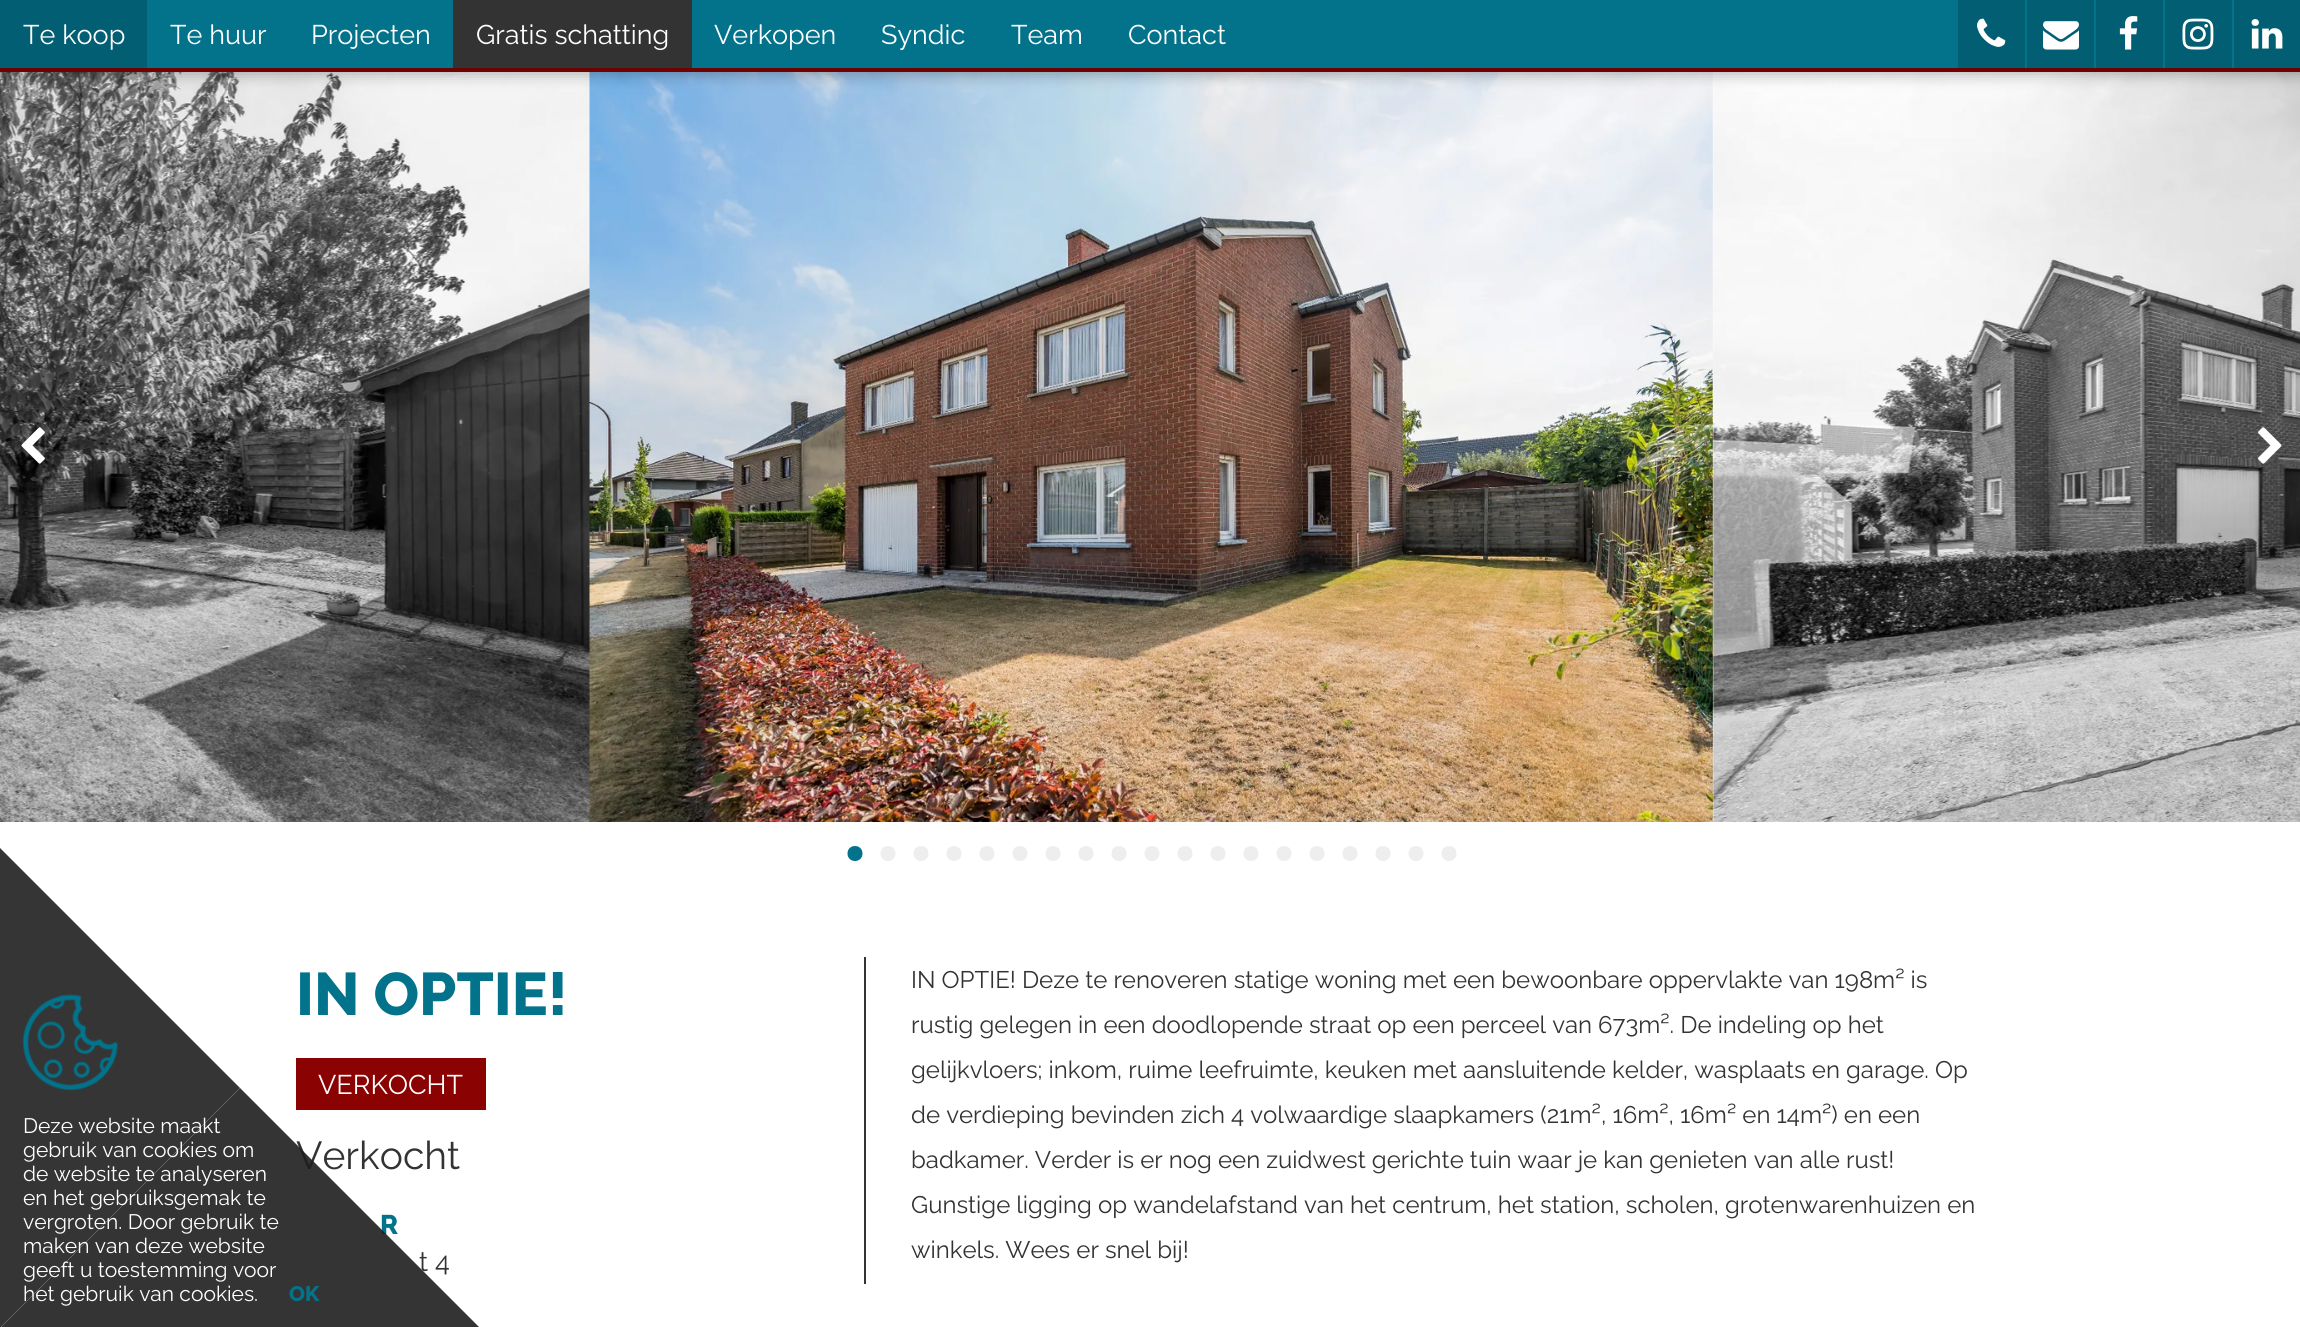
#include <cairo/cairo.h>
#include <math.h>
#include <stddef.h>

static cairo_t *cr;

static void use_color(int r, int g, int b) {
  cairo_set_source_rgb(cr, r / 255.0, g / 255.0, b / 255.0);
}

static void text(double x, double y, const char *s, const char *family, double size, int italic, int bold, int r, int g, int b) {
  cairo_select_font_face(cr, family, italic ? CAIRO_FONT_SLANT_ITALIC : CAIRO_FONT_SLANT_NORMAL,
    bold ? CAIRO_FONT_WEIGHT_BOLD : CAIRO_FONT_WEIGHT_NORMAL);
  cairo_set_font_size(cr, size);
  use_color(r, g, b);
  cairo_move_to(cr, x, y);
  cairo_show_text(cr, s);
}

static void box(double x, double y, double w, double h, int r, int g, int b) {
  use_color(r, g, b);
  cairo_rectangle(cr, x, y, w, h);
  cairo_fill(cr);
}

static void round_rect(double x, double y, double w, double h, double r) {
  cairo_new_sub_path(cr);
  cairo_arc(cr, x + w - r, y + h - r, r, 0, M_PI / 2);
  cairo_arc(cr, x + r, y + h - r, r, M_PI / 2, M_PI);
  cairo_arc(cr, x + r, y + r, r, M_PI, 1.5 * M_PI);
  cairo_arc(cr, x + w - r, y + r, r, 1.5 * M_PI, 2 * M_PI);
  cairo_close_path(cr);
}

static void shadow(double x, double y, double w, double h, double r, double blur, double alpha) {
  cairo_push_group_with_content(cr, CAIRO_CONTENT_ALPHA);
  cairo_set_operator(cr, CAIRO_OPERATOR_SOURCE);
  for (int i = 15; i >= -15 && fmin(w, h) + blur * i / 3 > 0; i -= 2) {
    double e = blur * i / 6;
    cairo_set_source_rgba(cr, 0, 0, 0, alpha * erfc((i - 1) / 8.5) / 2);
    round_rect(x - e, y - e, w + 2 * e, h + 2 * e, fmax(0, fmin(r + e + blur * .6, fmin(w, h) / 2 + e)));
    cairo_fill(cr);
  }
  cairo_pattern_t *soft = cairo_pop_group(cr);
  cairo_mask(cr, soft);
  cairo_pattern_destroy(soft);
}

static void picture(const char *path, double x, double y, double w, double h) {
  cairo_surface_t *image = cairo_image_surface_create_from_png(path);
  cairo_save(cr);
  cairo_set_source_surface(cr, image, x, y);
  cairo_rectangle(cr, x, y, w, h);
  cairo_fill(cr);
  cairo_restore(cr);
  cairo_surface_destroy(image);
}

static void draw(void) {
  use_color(255, 255, 255);
  cairo_paint(cr);
  box(0, 68, 2300, 4, 139, 2, 2);
  picture("img_06.png", 0, 72, 590, 750);
  picture("img_07.png", 589, 72, 1124, 750);
  picture("img_08.png", 1712, 72, 588, 750);
  use_color(0, 0, 0);
  shadow(-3, 0, 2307, 74, 0, 7.5, 0.3);
  box(147, 0, 2087, 68, 2, 115, 139);
  box(0, 0, 147, 68, 2, 94, 114);
  box(453, 0, 239, 68, 51, 51, 51);
  box(1958, 0, 67, 68, 2, 94, 114);
  picture("img_01.png", 1977, 18, 29, 29);
  box(2027, 0, 67, 68, 2, 94, 114);
  picture("img_02.png", 2043, 21, 36, 29);
  box(2096, 0, 67, 68, 2, 94, 114);
  picture("img_03.png", 2119, 16, 19, 34);
  box(2165, 0, 67, 68, 2, 94, 114);
  picture("img_04.png", 2182, 18, 32, 32);
  box(2234, 0, 66, 68, 2, 94, 114);
  picture("img_05.png", 2251, 19, 32, 30);
  picture("img_09.png", 21, 427, 24, 37);
  picture("img_10.png", 2258, 427, 24, 37);
  use_color(2, 115, 139);
  cairo_new_path(cr);
  cairo_move_to(cr, 862.5, 853.5);
  cairo_curve_to(cr, 862.5, 843.5, 847.5, 843.5, 847.5, 853.5);
  cairo_curve_to(cr, 847.5, 863.5, 862.5, 863.5, 862.5, 853.5);
  cairo_close_path(cr);
  cairo_fill(cr);
  use_color(238, 238, 238);
  cairo_new_path(cr);
  cairo_move_to(cr, 895.5, 853.5);
  cairo_curve_to(cr, 895.5, 843.5, 880.5, 843.5, 880.5, 853.5);
  cairo_curve_to(cr, 880.5, 863.5, 895.5, 863.5, 895.5, 853.5);
  cairo_close_path(cr);
  cairo_move_to(cr, 928.5, 853.5);
  cairo_curve_to(cr, 928.5, 843.5, 913.5, 843.5, 913.5, 853.5);
  cairo_curve_to(cr, 913.5, 863.5, 928.5, 863.5, 928.5, 853.5);
  cairo_close_path(cr);
  cairo_fill(cr);
  cairo_new_path(cr);
  cairo_move_to(cr, 961.5, 853.5);
  cairo_curve_to(cr, 961.5, 843.5, 946.5, 843.5, 946.5, 853.5);
  cairo_curve_to(cr, 946.5, 863.5, 961.5, 863.5, 961.5, 853.5);
  cairo_close_path(cr);
  cairo_move_to(cr, 994.5, 853.5);
  cairo_curve_to(cr, 994.5, 843.5, 979.5, 843.5, 979.5, 853.5);
  cairo_curve_to(cr, 979.5, 863.5, 994.5, 863.5, 994.5, 853.5);
  cairo_close_path(cr);
  cairo_fill(cr);
  cairo_new_path(cr);
  cairo_move_to(cr, 1027.5, 853.5);
  cairo_curve_to(cr, 1027.5, 843.5, 1012.5, 843.5, 1012.5, 853.5);
  cairo_curve_to(cr, 1012.5, 863.5, 1027.5, 863.5, 1027.5, 853.5);
  cairo_close_path(cr);
  cairo_move_to(cr, 1060.5, 853.5);
  cairo_curve_to(cr, 1060.5, 843.5, 1045.5, 843.5, 1045.5, 853.5);
  cairo_curve_to(cr, 1045.5, 863.5, 1060.5, 863.5, 1060.5, 853.5);
  cairo_close_path(cr);
  cairo_fill(cr);
  cairo_new_path(cr);
  cairo_move_to(cr, 1093.5, 853.5);
  cairo_curve_to(cr, 1093.5, 843.5, 1078.5, 843.5, 1078.5, 853.5);
  cairo_curve_to(cr, 1078.5, 863.5, 1093.5, 863.5, 1093.5, 853.5);
  cairo_close_path(cr);
  cairo_move_to(cr, 1126.5, 853.5);
  cairo_curve_to(cr, 1126.5, 843.5, 1111.5, 843.5, 1111.5, 853.5);
  cairo_curve_to(cr, 1111.5, 863.5, 1126.5, 863.5, 1126.5, 853.5);
  cairo_close_path(cr);
  cairo_fill(cr);
  cairo_new_path(cr);
  cairo_move_to(cr, 1159.5, 853.5);
  cairo_curve_to(cr, 1159.5, 843.5, 1144.5, 843.5, 1144.5, 853.5);
  cairo_curve_to(cr, 1144.5, 863.5, 1159.5, 863.5, 1159.5, 853.5);
  cairo_close_path(cr);
  cairo_move_to(cr, 1192.5, 853.5);
  cairo_curve_to(cr, 1192.5, 843.5, 1177.5, 843.5, 1177.5, 853.5);
  cairo_curve_to(cr, 1177.5, 863.5, 1192.5, 863.5, 1192.5, 853.5);
  cairo_close_path(cr);
  cairo_fill(cr);
  cairo_new_path(cr);
  cairo_move_to(cr, 1225.5, 853.5);
  cairo_curve_to(cr, 1225.5, 843.5, 1210.5, 843.5, 1210.5, 853.5);
  cairo_curve_to(cr, 1210.5, 863.5, 1225.5, 863.5, 1225.5, 853.5);
  cairo_close_path(cr);
  cairo_move_to(cr, 1258.5, 853.5);
  cairo_curve_to(cr, 1258.5, 843.5, 1243.5, 843.5, 1243.5, 853.5);
  cairo_curve_to(cr, 1243.5, 863.5, 1258.5, 863.5, 1258.5, 853.5);
  cairo_close_path(cr);
  cairo_fill(cr);
  cairo_new_path(cr);
  cairo_move_to(cr, 1291.5, 853.5);
  cairo_curve_to(cr, 1291.5, 843.5, 1276.5, 843.5, 1276.5, 853.5);
  cairo_curve_to(cr, 1276.5, 863.5, 1291.5, 863.5, 1291.5, 853.5);
  cairo_close_path(cr);
  cairo_move_to(cr, 1324.5, 853.5);
  cairo_curve_to(cr, 1324.5, 843.5, 1309.5, 843.5, 1309.5, 853.5);
  cairo_curve_to(cr, 1309.5, 863.5, 1324.5, 863.5, 1324.5, 853.5);
  cairo_close_path(cr);
  cairo_fill(cr);
  cairo_new_path(cr);
  cairo_move_to(cr, 1357.5, 853.5);
  cairo_curve_to(cr, 1357.5, 843.5, 1342.5, 843.5, 1342.5, 853.5);
  cairo_curve_to(cr, 1342.5, 863.5, 1357.5, 863.5, 1357.5, 853.5);
  cairo_close_path(cr);
  cairo_move_to(cr, 1390.5, 853.5);
  cairo_curve_to(cr, 1390.5, 843.5, 1375.5, 843.5, 1375.5, 853.5);
  cairo_curve_to(cr, 1375.5, 863.5, 1390.5, 863.5, 1390.5, 853.5);
  cairo_close_path(cr);
  cairo_fill(cr);
  cairo_new_path(cr);
  cairo_move_to(cr, 1423.5, 853.5);
  cairo_curve_to(cr, 1423.5, 843.5, 1408.5, 843.5, 1408.5, 853.5);
  cairo_curve_to(cr, 1408.5, 863.5, 1423.5, 863.5, 1423.5, 853.5);
  cairo_close_path(cr);
  cairo_move_to(cr, 1456.5, 853.5);
  cairo_curve_to(cr, 1456.5, 843.5, 1441.5, 843.5, 1441.5, 853.5);
  cairo_curve_to(cr, 1441.5, 863.5, 1456.5, 863.5, 1456.5, 853.5);
  cairo_close_path(cr);
  cairo_fill(cr);
  box(864, 957, 2, 327, 51, 51, 51);
  box(296, 1058, 190, 52, 139, 2, 2);
  text(23, 44, "Te koop", "Raleway", 27, 0, 0, 255, 255, 255);
  text(170, 44, "Te huur", "Raleway", 27, 0, 0, 255, 255, 255);
  text(311, 44, "Projecten", "Raleway", 27, 0, 0, 255, 255, 255);
  text(476, 44, "Gratis schatting", "Raleway", 27, 0, 0, 255, 255, 255);
  text(714, 44, "Verkopen", "Raleway", 27, 0, 0, 255, 255, 255);
  text(881, 44, "Syndic", "Raleway", 27, 0, 0, 255, 255, 255);
  text(1011, 44, "Team", "Raleway", 27, 0, 0, 255, 255, 255);
  text(1128, 44, "Contact", "Raleway", 27, 0, 0, 255, 255, 255);
  text(296, 1015, "IN OPTIE!", "Raleway ExtraBold", 60, 0, 0, 2, 115, 139);
  text(318, 1094, "VERKOCHT", "Raleway", 27, 0, 0, 255, 255, 255);
  text(296, 1169, "Verkocht", "Raleway", 39, 0, 0, 51, 51, 51);
  text(380, 1234, "R", "Raleway ExtraBold", 27, 0, 0, 2, 115, 139);
  text(419, 1271, "t 4", "Raleway", 27, 0, 0, 51, 51, 51);
  text(911, 988, "IN OPTIE! Deze te renoveren statige woning met een bewoonbare oppervlakte van 198m² is", "Raleway", 24, 0, 0, 51, 51, 51);
  text(911, 1033, "rustig gelegen in een doodlopende straat op een perceel van 673m². De indeling op het", "Raleway", 24, 0, 0, 51, 51, 51);
  text(911, 1078, "gelijkvloers; inkom, ruime leefruimte, keuken met aansluitende kelder, wasplaats en garage. Op", "Raleway", 24, 0, 0, 51, 51, 51);
  text(911, 1123, "de verdieping bevinden zich 4 volwaardige slaapkamers (21m², 16m², 16m² en 14m²) en een", "Raleway", 24, 0, 0, 51, 51, 51);
  text(911, 1168, "badkamer. Verder is er nog een zuidwest gerichte tuin waar je kan genieten van alle rust!", "Raleway", 24, 0, 0, 51, 51, 51);
  text(911, 1213, "Gunstige ligging op wandelafstand van het centrum, het station, scholen, grotenwarenhuizen en", "Raleway", 24, 0, 0, 51, 51, 51);
  text(911, 1258, "winkels. Wees er snel bij!", "Raleway", 24, 0, 0, 51, 51, 51);
  cairo_set_source_rgba(cr, 0.118, 0.118, 0.118, 0.9);
  cairo_new_path(cr);
  cairo_move_to(cr, 480, 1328);
  cairo_line_to(cr, 0, 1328);
  cairo_line_to(cr, 240, 1088);
  cairo_close_path(cr);
  cairo_fill(cr);
  use_color(53, 53, 53);
  cairo_new_path(cr);
  cairo_move_to(cr, 0, 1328);
  cairo_line_to(cr, 0, 848);
  cairo_line_to(cr, 240, 1088);
  cairo_close_path(cr);
  cairo_fill(cr);
  picture("img_11.png", 22, 994, 96, 97);
  text(23, 1133, "Deze website maakt", "Raleway", 21, 0, 0, 255, 255, 255);
  text(23, 1157, "gebruik van cookies om", "Raleway", 21, 0, 0, 255, 255, 255);
  text(23, 1181, "de website te analyseren", "Raleway", 21, 0, 0, 255, 255, 255);
  text(23, 1205, "en het gebruiksgemak te", "Raleway", 21, 0, 0, 255, 255, 255);
  text(23, 1229, "vergroten. Door gebruik te", "Raleway", 21, 0, 0, 255, 255, 255);
  text(23, 1253, "maken van deze website", "Raleway", 21, 0, 0, 255, 255, 255);
  text(23, 1277, "geeft u toestemming voor", "Raleway", 21, 0, 0, 255, 255, 255);
  text(23, 1301, "het gebruik van cookies.", "Raleway", 21, 0, 0, 255, 255, 255);
  text(289, 1301, "OK", "Raleway ExtraBold", 21, 0, 0, 2, 115, 139);
}

int main(void) {
  cairo_surface_t *surface = cairo_image_surface_create(CAIRO_FORMAT_RGB24, 2300, 1327);
  cr = cairo_create(surface);
  cairo_font_options_t *options = cairo_font_options_create();
  cairo_font_options_set_hint_metrics(options, CAIRO_HINT_METRICS_OFF);
  cairo_font_options_set_hint_style(options, CAIRO_HINT_STYLE_NONE);
  cairo_set_font_options(cr, options);
  cairo_set_miter_limit(cr, 4);
  draw();
  cairo_surface_write_to_png(surface, "out.png");
  cairo_font_options_destroy(options);
  cairo_destroy(cr);
  cairo_surface_destroy(surface);
  return 0;
}
